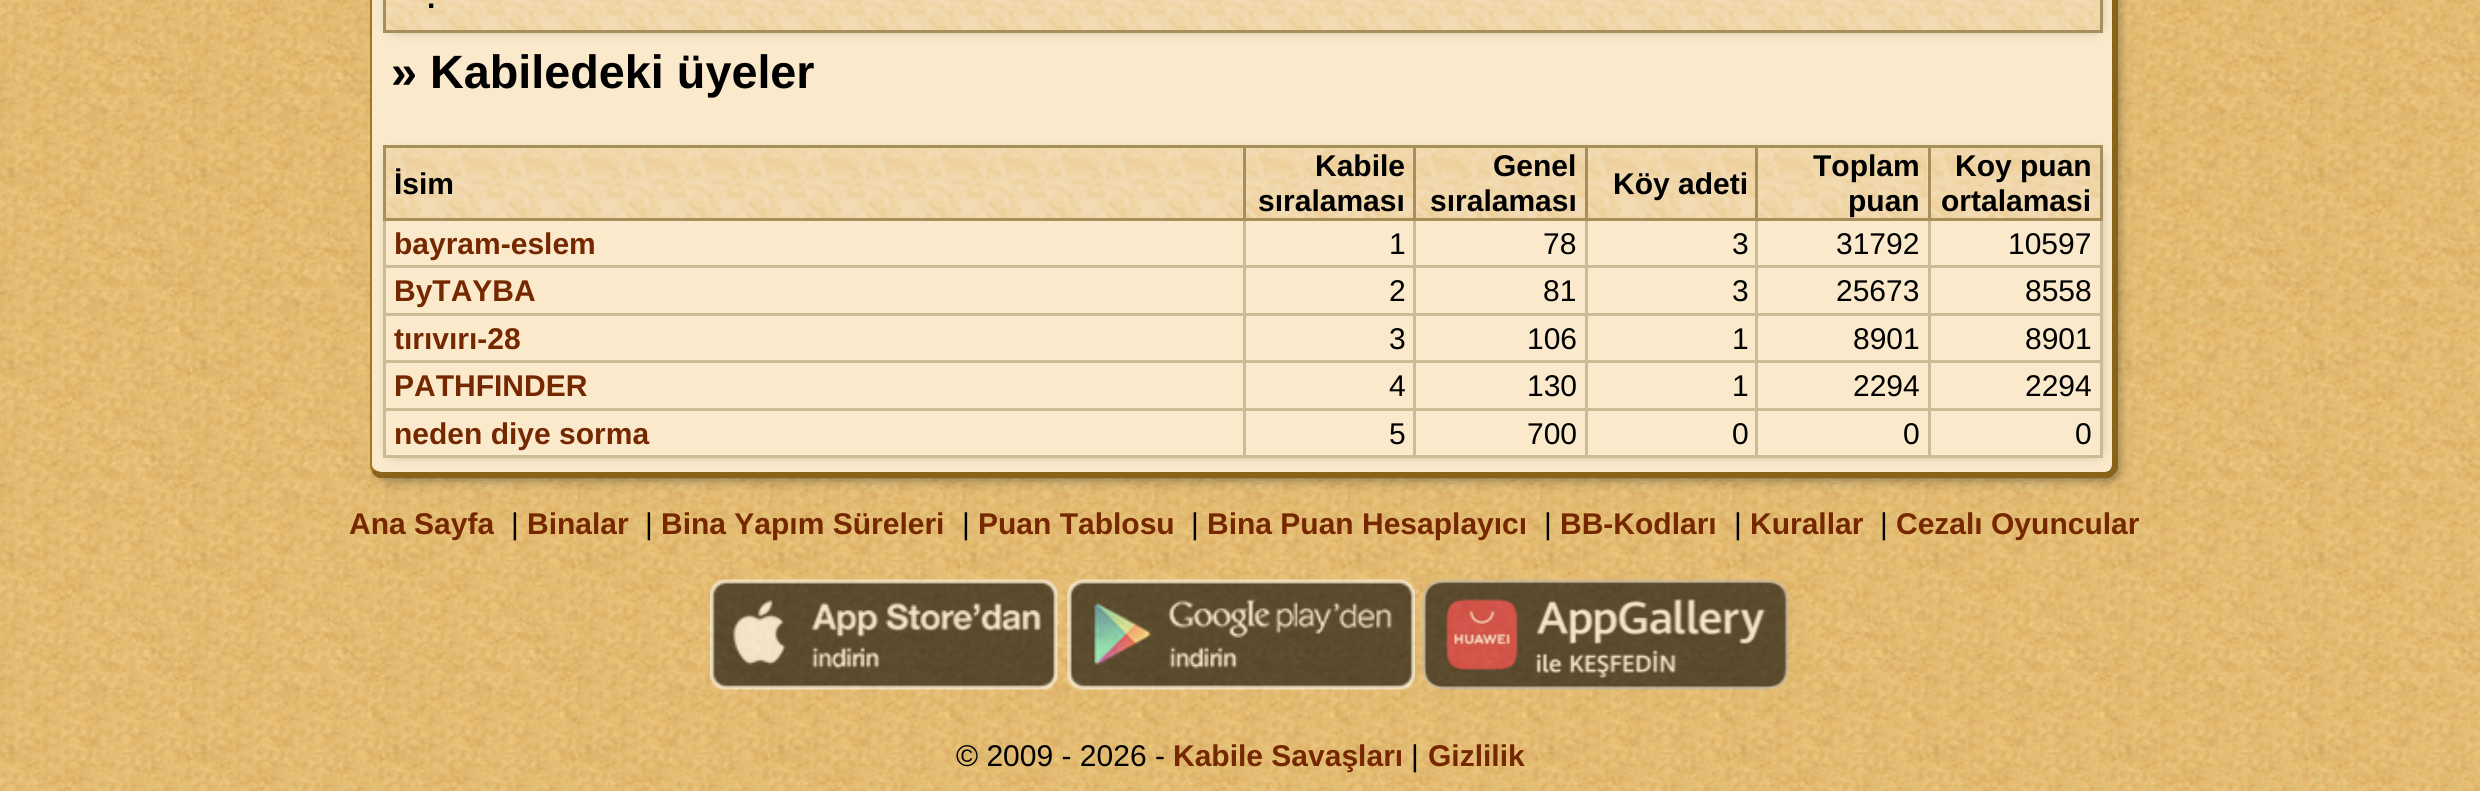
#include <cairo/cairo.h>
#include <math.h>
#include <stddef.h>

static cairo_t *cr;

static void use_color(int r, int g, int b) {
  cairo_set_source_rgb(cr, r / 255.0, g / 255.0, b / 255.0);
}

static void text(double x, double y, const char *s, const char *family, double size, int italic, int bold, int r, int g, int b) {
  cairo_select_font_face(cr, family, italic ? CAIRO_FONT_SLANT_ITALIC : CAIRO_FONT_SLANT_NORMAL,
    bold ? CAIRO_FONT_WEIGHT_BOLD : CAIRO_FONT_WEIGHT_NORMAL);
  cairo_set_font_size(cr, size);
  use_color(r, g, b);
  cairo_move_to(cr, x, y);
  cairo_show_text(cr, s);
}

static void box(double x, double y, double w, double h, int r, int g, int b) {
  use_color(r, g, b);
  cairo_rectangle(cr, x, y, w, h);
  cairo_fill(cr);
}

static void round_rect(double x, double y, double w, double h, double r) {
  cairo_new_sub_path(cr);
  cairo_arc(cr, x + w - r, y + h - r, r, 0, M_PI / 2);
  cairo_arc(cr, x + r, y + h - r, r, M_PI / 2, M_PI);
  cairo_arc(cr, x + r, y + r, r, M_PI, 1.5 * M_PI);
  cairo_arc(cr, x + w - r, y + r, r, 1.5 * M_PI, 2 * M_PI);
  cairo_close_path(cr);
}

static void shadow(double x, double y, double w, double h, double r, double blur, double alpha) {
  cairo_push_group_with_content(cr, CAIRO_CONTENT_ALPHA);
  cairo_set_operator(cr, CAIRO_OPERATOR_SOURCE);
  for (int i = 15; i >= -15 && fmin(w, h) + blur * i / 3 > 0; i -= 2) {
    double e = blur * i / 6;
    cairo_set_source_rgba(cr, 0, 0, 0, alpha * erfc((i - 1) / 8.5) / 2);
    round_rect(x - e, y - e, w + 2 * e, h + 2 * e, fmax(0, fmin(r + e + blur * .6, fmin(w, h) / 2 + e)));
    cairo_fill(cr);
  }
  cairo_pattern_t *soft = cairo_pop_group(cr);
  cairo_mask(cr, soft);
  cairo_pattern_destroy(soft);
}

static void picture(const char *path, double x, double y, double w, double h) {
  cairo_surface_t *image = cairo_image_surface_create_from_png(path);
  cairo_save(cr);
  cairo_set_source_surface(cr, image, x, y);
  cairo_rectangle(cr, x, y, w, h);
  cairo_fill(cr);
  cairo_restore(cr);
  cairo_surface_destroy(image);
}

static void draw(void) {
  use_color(255, 255, 255);
  cairo_paint(cr);
  picture("img_01.png", 0, 0, 2480, 791);
  use_color(34, 34, 34);
  shadow(385, -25, 1728, 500, 2.5, 7.5, 1);
  use_color(250, 234, 203);
  cairo_new_path(cr);
  cairo_move_to(cr, 382, -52);
  cairo_line_to(cr, 2105, -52);
  cairo_curve_to(cr, 2109, -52, 2112, -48, 2112, -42);
  cairo_line_to(cr, 2112, 465);
  cairo_curve_to(cr, 2112, 469, 2109, 472, 2105, 472);
  cairo_line_to(cr, 382, 472);
  cairo_curve_to(cr, 377, 472, 372, 469, 372, 465);
  cairo_line_to(cr, 372, -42);
  cairo_curve_to(cr, 372, -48, 377, -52, 382, -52);
  cairo_close_path(cr);
  cairo_fill(cr);
  use_color(138, 99, 25);
  cairo_new_path(cr);
  cairo_move_to(cr, 2118, 468);
  cairo_curve_to(cr, 2117, 471, 2116, 473, 2114, 474);
  cairo_line_to(cr, 2110, 470);
  cairo_curve_to(cr, 2111, 469, 2112, 467, 2112, 465);
  cairo_line_to(cr, 2112, -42);
  cairo_curve_to(cr, 2112, -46, 2111, -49, 2109, -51);
  cairo_line_to(cr, 2113, -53);
  cairo_curve_to(cr, 2115, -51, 2117, -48, 2118, -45);
  cairo_close_path(cr);
  cairo_fill(cr);
  cairo_new_path(cr);
  cairo_move_to(cr, 379, 478);
  cairo_curve_to(cr, 376, 477, 374, 475, 372, 473);
  cairo_line_to(cr, 374, 469);
  cairo_curve_to(cr, 376, 471, 379, 472, 382, 472);
  cairo_line_to(cr, 2105, 472);
  cairo_curve_to(cr, 2107, 472, 2109, 471, 2110, 470);
  cairo_line_to(cr, 2114, 474);
  cairo_curve_to(cr, 2113, 476, 2111, 477, 2108, 478);
  cairo_close_path(cr);
  cairo_fill(cr);
  use_color(165, 118, 31);
  cairo_new_path(cr);
  cairo_move_to(cr, 370, -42);
  cairo_line_to(cr, 370, 465);
  cairo_curve_to(cr, 370, 468, 371, 470, 372, 473);
  cairo_line_to(cr, 374, 469);
  cairo_curve_to(cr, 373, 468, 372, 467, 372, 465);
  cairo_line_to(cr, 372, -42);
  cairo_curve_to(cr, 372, -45, 373, -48, 375, -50);
  cairo_line_to(cr, 374, -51);
  cairo_curve_to(cr, 372, -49, 370, -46, 370, -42);
  cairo_close_path(cr);
  cairo_fill(cr);
  use_color(0, 0, 0);
  shadow(395, -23, 1700, 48, 0, 7.5, 0.6);
  box(2100, 0, 3, 33, 166, 143, 91);
  box(383, 30, 1720, 3, 166, 143, 91);
  box(383, 0, 3, 33, 166, 143, 91);
  picture("img_02.png", 386, 0, 1714, 30);
  cairo_save(cr);
  cairo_set_fill_rule(cr, CAIRO_FILL_RULE_EVEN_ODD);
  cairo_new_path(cr);
  cairo_move_to(cr, 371, 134);
  cairo_line_to(cr, 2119, 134);
  cairo_line_to(cr, 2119, 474);
  cairo_line_to(cr, 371, 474);
  cairo_close_path(cr);
  cairo_move_to(cr, 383, 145);
  cairo_line_to(cr, 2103, 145);
  cairo_line_to(cr, 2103, 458);
  cairo_line_to(cr, 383, 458);
  cairo_close_path(cr);
  cairo_clip(cr);
  use_color(0, 0, 0);
  shadow(395, 158, 1700, 292, 0, 7.5, 0.6);
  cairo_restore(cr);
  box(383, 145, 1720, 3, 166, 143, 91);
  box(383, 145, 3, 73, 166, 143, 91);
  picture("img_03.png", 386, 148, 857, 70);
  box(1928, 265, 175, 3, 202, 189, 149);
  box(1928, 313, 175, 3, 202, 189, 149);
  box(1928, 360, 175, 3, 202, 189, 149);
  box(1928, 408, 175, 3, 202, 189, 149);
  box(2100, 408, 3, 50, 202, 189, 149);
  box(2100, 360, 3, 50, 202, 189, 149);
  box(2100, 313, 3, 50, 202, 189, 149);
  box(2100, 218, 3, 97, 202, 189, 149);
  box(2100, 145, 3, 75, 166, 143, 91);
  box(1928, 455, 175, 3, 202, 189, 149);
  box(1928, 408, 3, 50, 202, 189, 149);
  box(1755, 408, 175, 3, 202, 189, 149);
  box(1928, 360, 3, 50, 202, 189, 149);
  box(1755, 360, 175, 3, 202, 189, 149);
  box(1928, 313, 3, 50, 202, 189, 149);
  box(1755, 313, 175, 3, 202, 189, 149);
  box(1928, 265, 3, 50, 202, 189, 149);
  box(1755, 265, 175, 3, 202, 189, 149);
  box(1928, 218, 3, 50, 202, 189, 149);
  box(1928, 218, 175, 3, 166, 143, 91);
  picture("img_07.png", 1758, 148, 170, 70);
  picture("img_08.png", 1927, 148, 173, 70);
  box(1928, 145, 3, 75, 166, 143, 91);
  box(1755, 455, 175, 3, 202, 189, 149);
  box(1755, 408, 3, 50, 202, 189, 149);
  box(1585, 408, 173, 3, 202, 189, 149);
  box(1755, 360, 3, 50, 202, 189, 149);
  box(1585, 360, 173, 3, 202, 189, 149);
  box(1755, 313, 3, 50, 202, 189, 149);
  box(1585, 313, 173, 3, 202, 189, 149);
  box(1755, 265, 3, 50, 202, 189, 149);
  box(1585, 265, 173, 3, 202, 189, 149);
  box(1755, 218, 3, 50, 202, 189, 149);
  box(1755, 218, 175, 3, 166, 143, 91);
  box(1755, 145, 3, 75, 166, 143, 91);
  box(1585, 455, 173, 3, 202, 189, 149);
  box(1585, 408, 3, 50, 202, 189, 149);
  box(1413, 408, 175, 3, 202, 189, 149);
  box(1585, 360, 3, 50, 202, 189, 149);
  box(1413, 360, 175, 3, 202, 189, 149);
  box(1585, 313, 3, 50, 202, 189, 149);
  box(1413, 313, 175, 3, 202, 189, 149);
  box(1585, 265, 3, 50, 202, 189, 149);
  box(1413, 265, 175, 3, 202, 189, 149);
  box(1585, 218, 3, 50, 202, 189, 149);
  box(1585, 218, 173, 3, 166, 143, 91);
  box(1585, 145, 3, 75, 166, 143, 91);
  box(1413, 455, 175, 3, 202, 189, 149);
  box(1413, 408, 3, 50, 202, 189, 149);
  box(1243, 408, 172, 3, 202, 189, 149);
  box(1413, 360, 3, 50, 202, 189, 149);
  box(1243, 360, 172, 3, 202, 189, 149);
  box(1413, 313, 3, 50, 202, 189, 149);
  box(1243, 313, 172, 3, 202, 189, 149);
  box(1413, 265, 3, 50, 202, 189, 149);
  box(1243, 265, 172, 3, 202, 189, 149);
  box(1413, 218, 3, 50, 202, 189, 149);
  box(1413, 218, 175, 3, 166, 143, 91);
  box(1413, 145, 3, 75, 166, 143, 91);
  box(1243, 455, 172, 3, 202, 189, 149);
  box(1243, 408, 3, 50, 202, 189, 149);
  box(383, 408, 862, 3, 202, 189, 149);
  box(1243, 360, 3, 50, 202, 189, 149);
  box(383, 360, 862, 3, 202, 189, 149);
  box(1243, 313, 3, 50, 202, 189, 149);
  box(383, 313, 862, 3, 202, 189, 149);
  box(1243, 265, 3, 50, 202, 189, 149);
  box(383, 265, 862, 3, 202, 189, 149);
  box(1243, 218, 3, 50, 202, 189, 149);
  box(1243, 218, 172, 3, 166, 143, 91);
  picture("img_04.png", 1242, 148, 171, 70);
  box(1243, 145, 3, 75, 166, 143, 91);
  box(383, 455, 862, 3, 202, 189, 149);
  box(383, 408, 3, 50, 202, 189, 149);
  box(383, 360, 3, 50, 202, 189, 149);
  box(383, 313, 3, 50, 202, 189, 149);
  box(383, 218, 3, 97, 202, 189, 149);
  box(383, 218, 862, 3, 166, 143, 91);
  picture("img_05.png", 1416, 148, 169, 70);
  picture("img_06.png", 1588, 148, 167, 70);
  picture("img_09.png", 710, 579, 348, 111);
  picture("img_10.png", 1067, 579, 348, 111);
  picture("img_11.png", 1422, 579, 368, 111);
  text(427, 8, ".", "Liberation Sans", 30, 0, 1, 0, 0, 0);
  text(391, 88, "» Kabiledeki üyeler", "Liberation Sans", 46.75, 0, 1, 0, 0, 0);
  text(394, 194, "İsim", "Liberation Sans", 30, 0, 1, 0, 0, 0);
  text(1315, 176, "Kabile", "Liberation Sans", 30, 0, 1, 0, 0, 0);
  text(1258, 211, "sıralaması", "Liberation Sans", 30, 0, 1, 0, 0, 0);
  text(1493, 176, "Genel", "Liberation Sans", 30, 0, 1, 0, 0, 0);
  text(1430, 211, "sıralaması", "Liberation Sans", 30, 0, 1, 0, 0, 0);
  text(1613, 194, "Köy adeti", "Liberation Sans", 30, 0, 1, 0, 0, 0);
  text(1813, 176, "Toplam", "Liberation Sans", 30, 0, 1, 0, 0, 0);
  text(1848, 211, "puan", "Liberation Sans", 30, 0, 1, 0, 0, 0);
  text(1955, 176, "Koy puan", "Liberation Sans", 30, 0, 1, 0, 0, 0);
  text(1941, 211, "ortalamasi", "Liberation Sans", 30, 0, 1, 0, 0, 0);
  text(394, 254, "bayram-eslem", "Liberation Sans", 30, 0, 1, 117, 39, 0);
  text(1389, 254, "1", "Liberation Sans", 30, 0, 0, 0, 0, 0);
  text(1543, 254, "78", "Liberation Sans", 30, 0, 0, 0, 0, 0);
  text(1732, 254, "3", "Liberation Sans", 30, 0, 0, 0, 0, 0);
  text(1836, 254, "31792", "Liberation Sans", 30, 0, 0, 0, 0, 0);
  text(2008, 254, "10597", "Liberation Sans", 30, 0, 0, 0, 0, 0);
  text(394, 301, "ByTAYBA", "Liberation Sans", 30, 0, 1, 117, 39, 0);
  text(1389, 301, "2", "Liberation Sans", 30, 0, 0, 0, 0, 0);
  text(1543, 301, "81", "Liberation Sans", 30, 0, 0, 0, 0, 0);
  text(1732, 301, "3", "Liberation Sans", 30, 0, 0, 0, 0, 0);
  text(1836, 301, "25673", "Liberation Sans", 30, 0, 0, 0, 0, 0);
  text(2025, 301, "8558", "Liberation Sans", 30, 0, 0, 0, 0, 0);
  text(394, 349, "tırıvırı-28", "Liberation Sans", 30, 0, 1, 117, 39, 0);
  text(1389, 349, "3", "Liberation Sans", 30, 0, 0, 0, 0, 0);
  text(1527, 349, "106", "Liberation Sans", 30, 0, 0, 0, 0, 0);
  text(1732, 349, "1", "Liberation Sans", 30, 0, 0, 0, 0, 0);
  text(1853, 349, "8901", "Liberation Sans", 30, 0, 0, 0, 0, 0);
  text(2025, 349, "8901", "Liberation Sans", 30, 0, 0, 0, 0, 0);
  text(394, 396, "PATHFINDER", "Liberation Sans", 30, 0, 1, 117, 39, 0);
  text(1389, 396, "4", "Liberation Sans", 30, 0, 0, 0, 0, 0);
  text(1527, 396, "130", "Liberation Sans", 30, 0, 0, 0, 0, 0);
  text(1732, 396, "1", "Liberation Sans", 30, 0, 0, 0, 0, 0);
  text(1853, 396, "2294", "Liberation Sans", 30, 0, 0, 0, 0, 0);
  text(2025, 396, "2294", "Liberation Sans", 30, 0, 0, 0, 0, 0);
  text(394, 444, "neden diye sorma", "Liberation Sans", 30, 0, 1, 117, 39, 0);
  text(1389, 444, "5", "Liberation Sans", 30, 0, 0, 0, 0, 0);
  text(1527, 444, "700", "Liberation Sans", 30, 0, 0, 0, 0, 0);
  text(1732, 444, "0", "Liberation Sans", 30, 0, 0, 0, 0, 0);
  text(1903, 444, "0", "Liberation Sans", 30, 0, 0, 0, 0, 0);
  text(2075, 444, "0", "Liberation Sans", 30, 0, 0, 0, 0, 0);
  text(349, 534, "Ana Sayfa", "Liberation Sans", 30, 0, 1, 117, 39, 0);
  text(511, 534, "|", "Liberation Sans", 30, 0, 0, 0, 0, 0);
  text(527, 534, "Binalar", "Liberation Sans", 30, 0, 1, 117, 39, 0);
  text(645, 534, "|", "Liberation Sans", 30, 0, 0, 0, 0, 0);
  text(661, 534, "Bina Yapım Süreleri", "Liberation Sans", 30, 0, 1, 117, 39, 0);
  text(962, 534, "|", "Liberation Sans", 30, 0, 0, 0, 0, 0);
  text(978, 534, "Puan Tablosu", "Liberation Sans", 30, 0, 1, 117, 39, 0);
  text(1191, 534, "|", "Liberation Sans", 30, 0, 0, 0, 0, 0);
  text(1207, 534, "Bina Puan Hesaplayıcı", "Liberation Sans", 30, 0, 1, 117, 39, 0);
  text(1544, 534, "|", "Liberation Sans", 30, 0, 0, 0, 0, 0);
  text(1560, 534, "BB-Kodları", "Liberation Sans", 30, 0, 1, 117, 39, 0);
  text(1734, 534, "|", "Liberation Sans", 30, 0, 0, 0, 0, 0);
  text(1750, 534, "Kurallar", "Liberation Sans", 30, 0, 1, 117, 39, 0);
  text(1880, 534, "|", "Liberation Sans", 30, 0, 0, 0, 0, 0);
  text(1896, 534, "Cezalı Oyuncular", "Liberation Sans", 30, 0, 1, 117, 39, 0);
  text(956, 766, "© 2009 - 2026 -", "Liberation Sans", 30, 0, 0, 0, 0, 0);
  text(1173, 766, "Kabile Savaşları", "Liberation Sans", 30, 0, 1, 117, 39, 0);
  text(1411, 766, "|", "Liberation Sans", 30, 0, 0, 0, 0, 0);
  text(1428, 766, "Gizlilik", "Liberation Sans", 30, 0, 1, 117, 39, 0);
}

int main(void) {
  cairo_surface_t *surface = cairo_image_surface_create(CAIRO_FORMAT_RGB24, 2480, 791);
  cr = cairo_create(surface);
  cairo_font_options_t *options = cairo_font_options_create();
  cairo_font_options_set_hint_metrics(options, CAIRO_HINT_METRICS_OFF);
  cairo_font_options_set_hint_style(options, CAIRO_HINT_STYLE_NONE);
  cairo_set_font_options(cr, options);
  cairo_set_miter_limit(cr, 4);
  draw();
  cairo_surface_write_to_png(surface, "out.png");
  cairo_font_options_destroy(options);
  cairo_destroy(cr);
  cairo_surface_destroy(surface);
  return 0;
}
